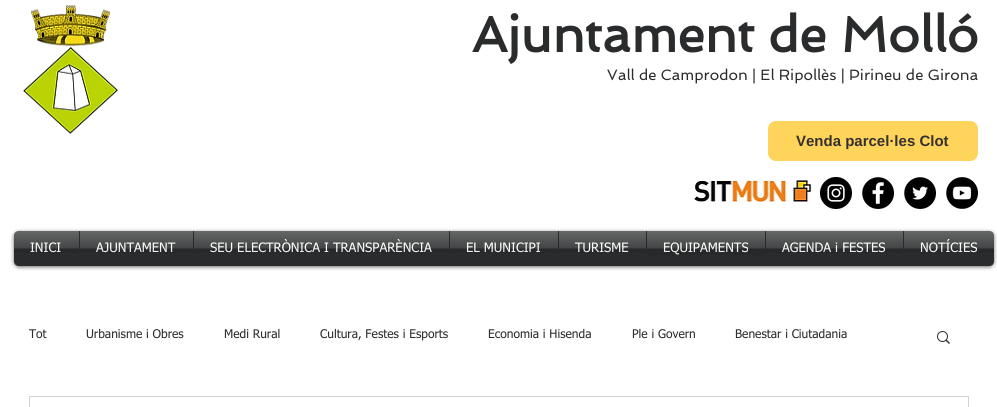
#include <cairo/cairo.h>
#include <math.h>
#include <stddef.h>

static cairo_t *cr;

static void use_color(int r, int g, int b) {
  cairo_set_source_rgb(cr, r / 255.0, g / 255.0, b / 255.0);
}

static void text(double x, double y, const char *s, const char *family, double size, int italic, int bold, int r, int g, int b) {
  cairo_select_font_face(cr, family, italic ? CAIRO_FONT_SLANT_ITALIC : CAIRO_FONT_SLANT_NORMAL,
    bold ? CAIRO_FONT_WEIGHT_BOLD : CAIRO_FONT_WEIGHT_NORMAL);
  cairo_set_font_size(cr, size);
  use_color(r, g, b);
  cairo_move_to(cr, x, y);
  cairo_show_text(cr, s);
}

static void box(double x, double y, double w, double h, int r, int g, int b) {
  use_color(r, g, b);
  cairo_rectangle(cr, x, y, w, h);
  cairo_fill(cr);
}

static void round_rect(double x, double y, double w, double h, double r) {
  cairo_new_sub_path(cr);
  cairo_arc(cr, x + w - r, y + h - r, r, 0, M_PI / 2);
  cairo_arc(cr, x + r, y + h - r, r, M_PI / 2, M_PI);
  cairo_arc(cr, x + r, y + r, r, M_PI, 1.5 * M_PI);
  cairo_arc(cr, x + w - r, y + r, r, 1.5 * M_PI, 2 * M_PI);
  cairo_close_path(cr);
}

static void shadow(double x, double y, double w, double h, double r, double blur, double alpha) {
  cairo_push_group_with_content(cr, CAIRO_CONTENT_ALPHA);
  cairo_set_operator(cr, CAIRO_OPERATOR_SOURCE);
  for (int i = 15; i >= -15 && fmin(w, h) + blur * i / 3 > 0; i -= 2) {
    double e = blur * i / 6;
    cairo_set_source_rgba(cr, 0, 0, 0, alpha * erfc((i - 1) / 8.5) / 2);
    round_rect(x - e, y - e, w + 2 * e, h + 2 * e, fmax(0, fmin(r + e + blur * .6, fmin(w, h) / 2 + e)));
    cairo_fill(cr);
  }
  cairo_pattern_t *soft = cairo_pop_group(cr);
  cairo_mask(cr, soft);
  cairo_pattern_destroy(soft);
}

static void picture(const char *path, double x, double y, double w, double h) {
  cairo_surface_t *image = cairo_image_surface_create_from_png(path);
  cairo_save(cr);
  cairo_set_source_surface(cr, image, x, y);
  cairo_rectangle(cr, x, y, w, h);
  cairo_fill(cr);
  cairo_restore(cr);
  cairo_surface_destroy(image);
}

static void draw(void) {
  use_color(255, 255, 255);
  cairo_paint(cr);
  picture("img_01.png", 23, 5, 95, 129);
  use_color(255, 212, 90);
  round_rect(768, 121, 210, 40, 8);
  cairo_fill(cr);
  picture("img_02.png", 694, 180, 118, 22);
  picture("img_03.png", 820, 177, 32, 32);
  picture("img_04.png", 862, 177, 32, 32);
  picture("img_05.png", 904, 177, 32, 32);
  picture("img_06.png", 946, 177, 32, 32);
  use_color(0, 0, 0);
  shadow(14, 232, 980, 35, 5, 2, 0.6);
  picture("img_07.png", 14, 231, 980, 5);
  use_color(42, 43, 44);
  cairo_new_path(cr);
  cairo_move_to(cr, 19, 231);
  cairo_line_to(cr, 79, 231);
  cairo_line_to(cr, 79, 266);
  cairo_line_to(cr, 19, 266);
  cairo_curve_to(cr, 16, 266, 14, 264, 14, 261);
  cairo_line_to(cr, 14, 236);
  cairo_curve_to(cr, 14, 233, 16, 231, 19, 231);
  cairo_close_path(cr);
  cairo_fill(cr);
  box(79, 231, 824, 35, 42, 43, 44);
  cairo_new_path(cr);
  cairo_move_to(cr, 903, 231);
  cairo_line_to(cr, 989, 231);
  cairo_curve_to(cr, 992, 231, 994, 233, 994, 236);
  cairo_line_to(cr, 994, 261);
  cairo_curve_to(cr, 994, 264, 992, 266, 989, 266);
  cairo_line_to(cr, 903, 266);
  cairo_close_path(cr);
  cairo_fill(cr);
  picture("img_16.png", 937, 331, 13, 13);
  cairo_rectangle(cr, 29.5, 396.5, 939, 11);
  use_color(212, 210, 210);
  cairo_set_line_width(cr, 1);
  cairo_stroke(cr);
  text(472, 52, "Ajuntament de Molló", "Spinnaker", 50, 0, 1, 42, 43, 44);
  text(607, 80, "Vall de Camprodon | El Ripollès | Pirineu de Girona", "Spinnaker", 15, 0, 0, 42, 43, 44);
  text(796, 146, "Venda parcel·les Clot", "Liberation Sans", 15, 0, 1, 53, 49, 49);
  text(30, 252, "INICI", "tahoma", 13, 0, 0, 255, 255, 255);
  picture("img_08.png", 14, 231, 65, 22);
  text(96, 252, "AJUNTAMENT", "tahoma", 13, 0, 0, 255, 255, 255);
  picture("img_09.png", 80, 231, 113, 22);
  text(210, 252, "SEU ELECTRÒNICA I TRANSPARÈNCIA", "tahoma", 13, 0, 0, 255, 255, 255);
  picture("img_10.png", 194, 231, 255, 22);
  text(466, 252, "EL MUNICIPI", "tahoma", 13, 0, 0, 255, 255, 255);
  picture("img_11.png", 450, 231, 108, 22);
  text(575, 252, "TURISME", "tahoma", 13, 0, 0, 255, 255, 255);
  picture("img_12.png", 559, 231, 87, 22);
  text(663, 252, "EQUIPAMENTS", "tahoma", 13, 0, 0, 255, 255, 255);
  picture("img_13.png", 647, 231, 118, 24);
  text(782, 252, "AGENDA i FESTES", "tahoma", 13, 0, 0, 255, 255, 255);
  picture("img_14.png", 766, 231, 137, 22);
  text(920, 252, "NOTÍCIES", "tahoma", 13, 0, 0, 255, 255, 255);
  picture("img_15.png", 904, 231, 90, 22);
  text(29, 338, "Tot", "tahoma", 12, 0, 0, 42, 43, 44);
  text(86, 338, "Urbanisme i Obres", "tahoma", 12, 0, 0, 42, 43, 44);
  text(224, 338, "Medi Rural", "tahoma", 12, 0, 0, 42, 43, 44);
  text(320, 338, "Cultura, Festes i Esports", "tahoma", 12, 0, 0, 42, 43, 44);
  text(488, 338, "Economia i Hisenda", "tahoma", 12, 0, 0, 42, 43, 44);
  text(632, 338, "Ple i Govern", "tahoma", 12, 0, 0, 42, 43, 44);
  text(735, 338, "Benestar i Ciutadania", "tahoma", 12, 0, 0, 42, 43, 44);
}

int main(void) {
  cairo_surface_t *surface = cairo_image_surface_create(CAIRO_FORMAT_RGB24, 997, 407);
  cr = cairo_create(surface);
  cairo_font_options_t *options = cairo_font_options_create();
  cairo_font_options_set_hint_metrics(options, CAIRO_HINT_METRICS_OFF);
  cairo_font_options_set_hint_style(options, CAIRO_HINT_STYLE_NONE);
  cairo_set_font_options(cr, options);
  cairo_set_miter_limit(cr, 4);
  draw();
  cairo_surface_write_to_png(surface, "out.png");
  cairo_font_options_destroy(options);
  cairo_destroy(cr);
  cairo_surface_destroy(surface);
  return 0;
}
